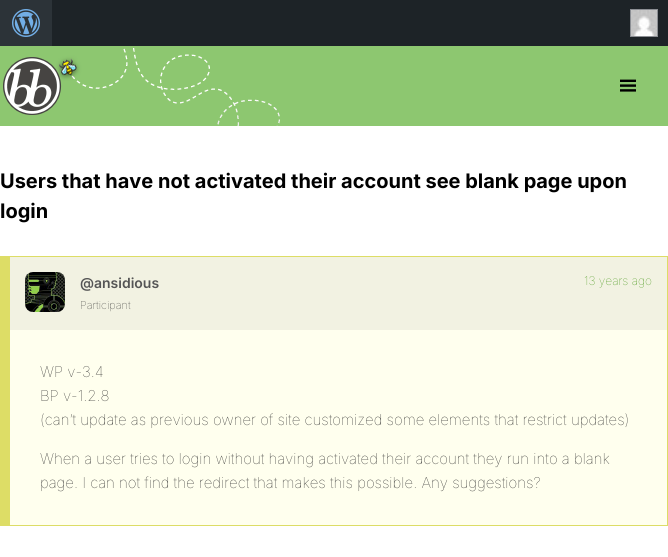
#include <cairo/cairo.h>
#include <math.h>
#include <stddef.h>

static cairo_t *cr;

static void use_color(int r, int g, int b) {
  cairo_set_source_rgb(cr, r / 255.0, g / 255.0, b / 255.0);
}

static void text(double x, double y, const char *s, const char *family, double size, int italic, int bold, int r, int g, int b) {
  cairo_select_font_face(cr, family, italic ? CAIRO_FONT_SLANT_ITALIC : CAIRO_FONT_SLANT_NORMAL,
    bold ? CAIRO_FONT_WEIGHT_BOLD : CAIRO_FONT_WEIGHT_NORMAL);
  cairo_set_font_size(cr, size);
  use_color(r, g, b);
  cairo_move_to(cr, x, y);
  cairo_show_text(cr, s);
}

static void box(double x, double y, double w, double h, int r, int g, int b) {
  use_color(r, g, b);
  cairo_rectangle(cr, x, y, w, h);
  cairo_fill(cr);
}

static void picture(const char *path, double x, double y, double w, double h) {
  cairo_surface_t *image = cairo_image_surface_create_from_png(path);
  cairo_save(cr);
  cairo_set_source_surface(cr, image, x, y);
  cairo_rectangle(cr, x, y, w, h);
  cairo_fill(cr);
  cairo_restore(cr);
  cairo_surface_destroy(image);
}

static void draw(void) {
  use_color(255, 255, 255);
  cairo_paint(cr);
  box(52, 0, 616, 46, 29, 35, 39);
  box(0, 0, 52, 46, 44, 51, 56);
  picture("img_01.png", 12, 9, 28, 28);
  cairo_rectangle(cr, 630.5, 9.5, 27, 27);
  use_color(140, 143, 148);
  cairo_set_line_width(cr, 1);
  cairo_stroke(cr);
  picture("img_02.png", 631, 10, 26, 26);
  box(0, 46, 668, 80, 141, 199, 112);
  picture("img_03.png", 56, 48, 224, 78);
  picture("img_04.png", 3, 57, 62, 58);
  picture("img_05.png", 620, 79, 16, 13);
  box(10, 256, 658, 1, 221, 221, 102);
  box(667, 256, 1, 270, 221, 221, 102);
  box(10, 525, 658, 1, 221, 221, 102);
  box(0, 256, 10, 270, 221, 221, 102);
  box(10, 330, 657, 195, 255, 255, 238);
  box(10, 257, 657, 73, 242, 242, 226);
  picture("img_06.png", 25, 272, 40, 40);
  text(0, 188, "Users that have not activated their account see blank page upon", "Inter", 20, 0, 1, 0, 0, 0);
  text(0, 218, "login", "Inter", 20, 0, 1, 0, 0, 0);
  text(80, 288, "@ansidious", "Inter SemiBold", 14, 0, 0, 85, 85, 85);
  text(80, 309, "Participant", "Inter Thin", 11, 0, 0, 34, 34, 34);
  text(584, 285, "13 years ago", "Inter Thin", 12, 0, 0, 50, 140, 0);
  text(40, 377, "WP v-3.4", "Inter Thin", 15, 0, 0, 34, 34, 34);
  text(40, 401, "BP v-1.2.8", "Inter Thin", 15, 0, 0, 34, 34, 34);
  text(40, 425, "(can’t update as previous owner of site customized some elements that restrict updates)", "Inter Thin", 15, 0, 0, 34, 34, 34);
  text(40, 464, "When a user tries to login without having activated their account they run into a blank", "Inter Thin", 15, 0, 0, 34, 34, 34);
  text(40, 488, "page. I can not find the redirect that makes this possible. Any suggestions?", "Inter Thin", 15, 0, 0, 34, 34, 34);
}

int main(void) {
  cairo_surface_t *surface = cairo_image_surface_create(CAIRO_FORMAT_RGB24, 668, 557);
  cr = cairo_create(surface);
  cairo_font_options_t *options = cairo_font_options_create();
  cairo_font_options_set_hint_metrics(options, CAIRO_HINT_METRICS_OFF);
  cairo_font_options_set_hint_style(options, CAIRO_HINT_STYLE_NONE);
  cairo_set_font_options(cr, options);
  cairo_set_miter_limit(cr, 4);
  draw();
  cairo_surface_write_to_png(surface, "out.png");
  cairo_font_options_destroy(options);
  cairo_destroy(cr);
  cairo_surface_destroy(surface);
  return 0;
}
